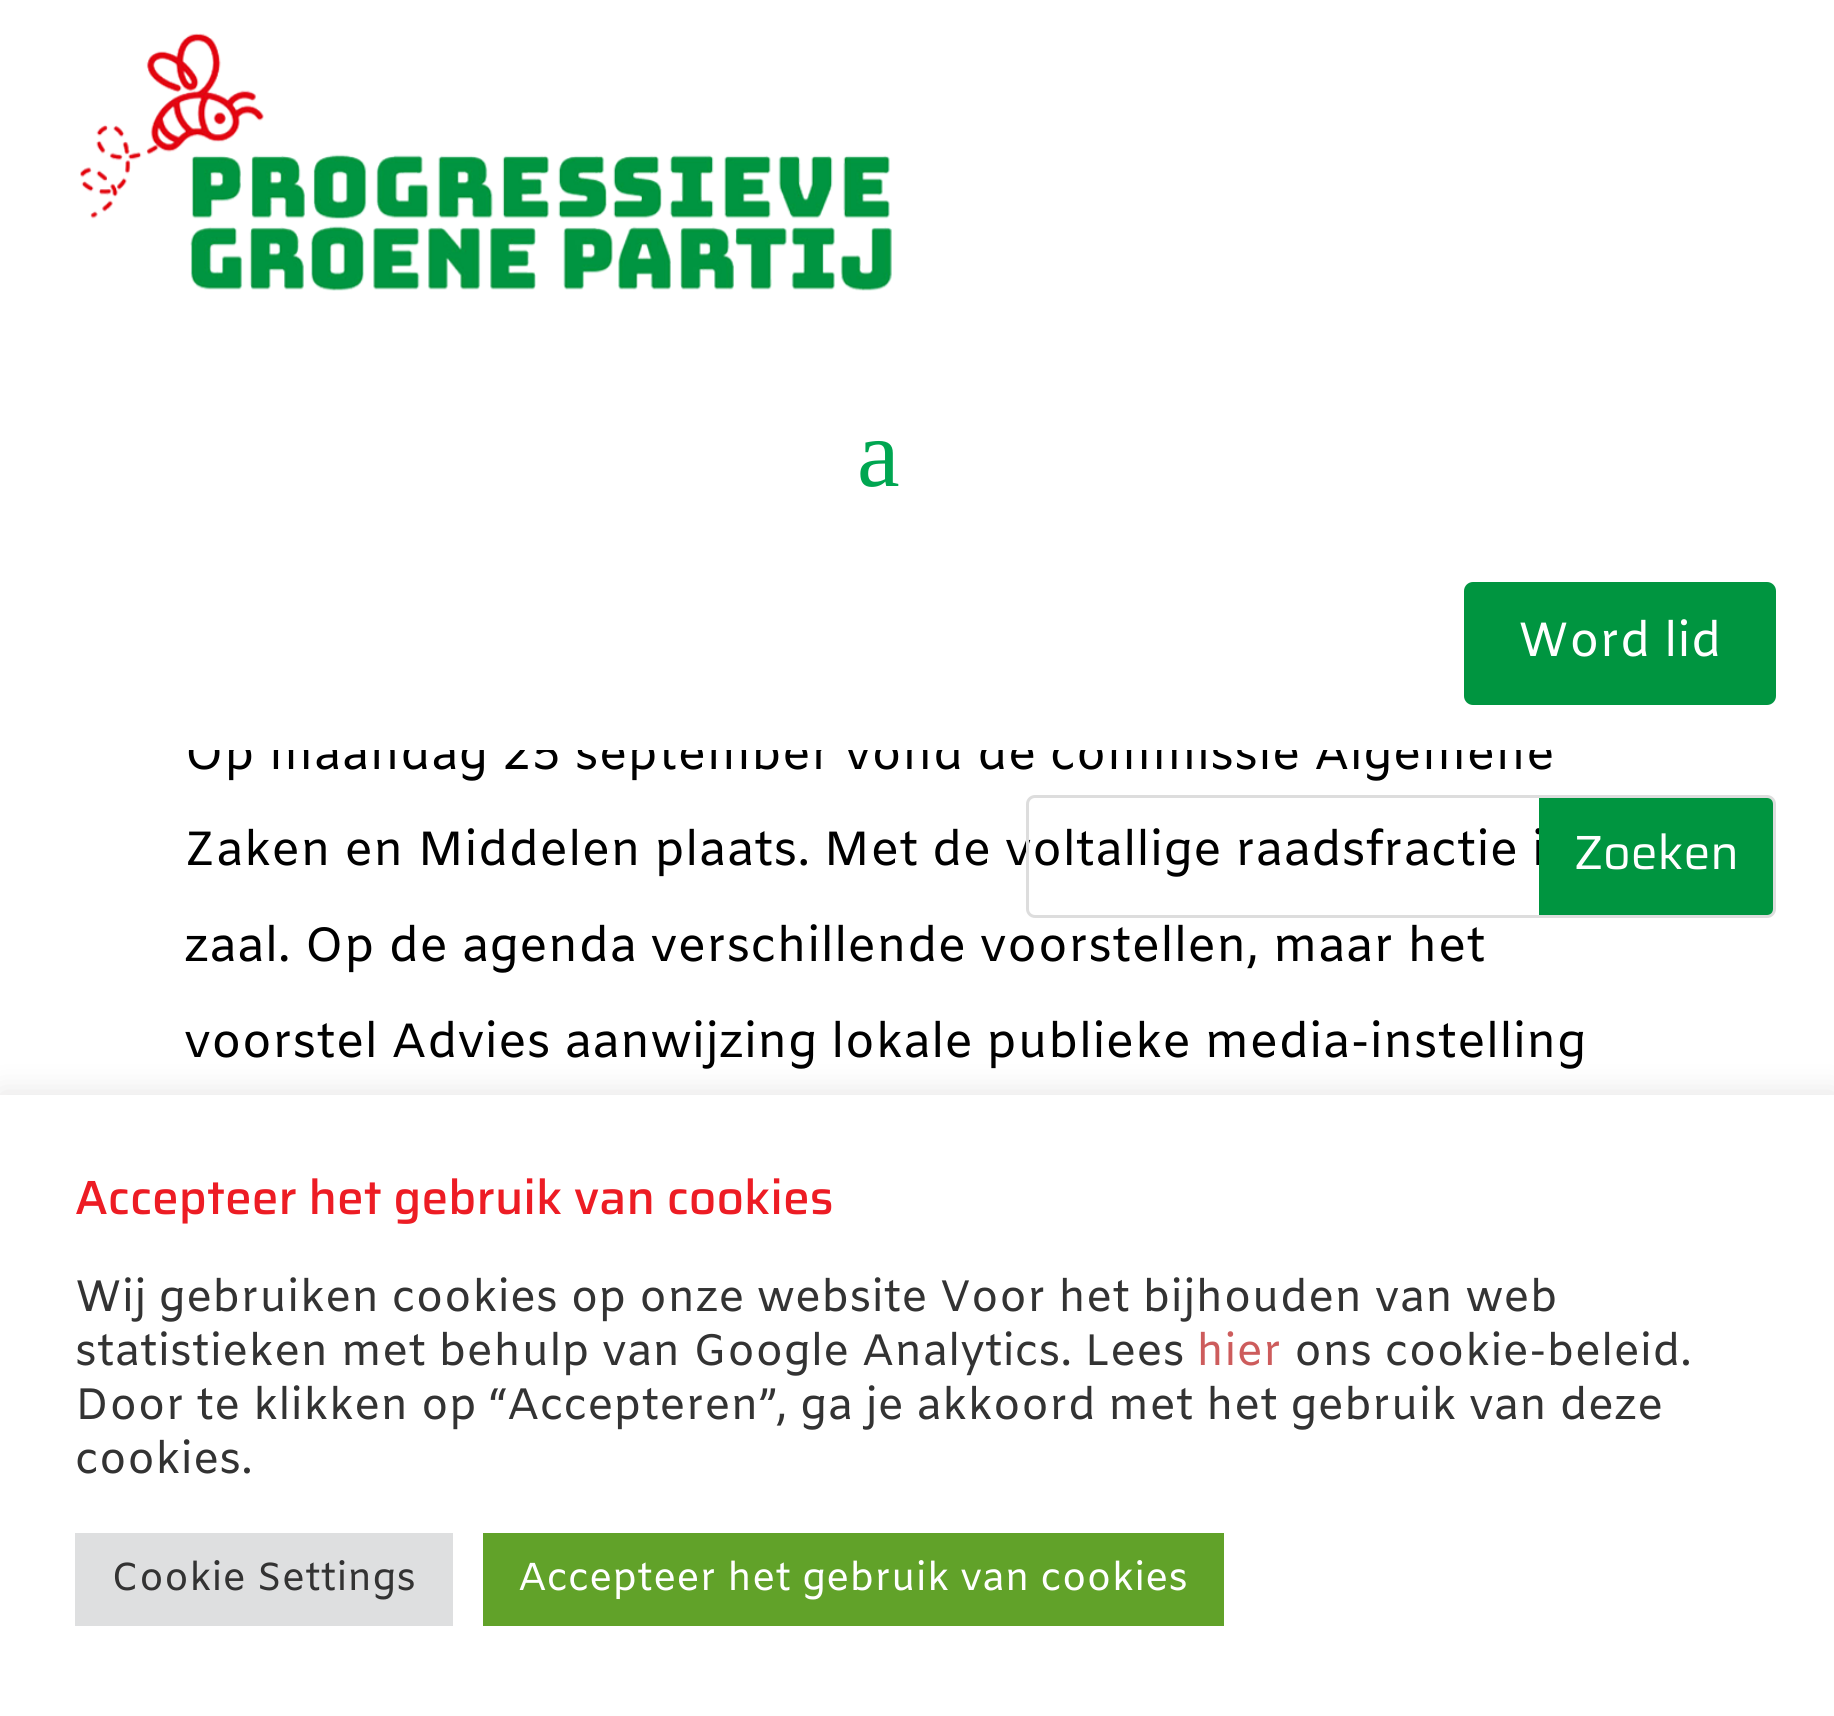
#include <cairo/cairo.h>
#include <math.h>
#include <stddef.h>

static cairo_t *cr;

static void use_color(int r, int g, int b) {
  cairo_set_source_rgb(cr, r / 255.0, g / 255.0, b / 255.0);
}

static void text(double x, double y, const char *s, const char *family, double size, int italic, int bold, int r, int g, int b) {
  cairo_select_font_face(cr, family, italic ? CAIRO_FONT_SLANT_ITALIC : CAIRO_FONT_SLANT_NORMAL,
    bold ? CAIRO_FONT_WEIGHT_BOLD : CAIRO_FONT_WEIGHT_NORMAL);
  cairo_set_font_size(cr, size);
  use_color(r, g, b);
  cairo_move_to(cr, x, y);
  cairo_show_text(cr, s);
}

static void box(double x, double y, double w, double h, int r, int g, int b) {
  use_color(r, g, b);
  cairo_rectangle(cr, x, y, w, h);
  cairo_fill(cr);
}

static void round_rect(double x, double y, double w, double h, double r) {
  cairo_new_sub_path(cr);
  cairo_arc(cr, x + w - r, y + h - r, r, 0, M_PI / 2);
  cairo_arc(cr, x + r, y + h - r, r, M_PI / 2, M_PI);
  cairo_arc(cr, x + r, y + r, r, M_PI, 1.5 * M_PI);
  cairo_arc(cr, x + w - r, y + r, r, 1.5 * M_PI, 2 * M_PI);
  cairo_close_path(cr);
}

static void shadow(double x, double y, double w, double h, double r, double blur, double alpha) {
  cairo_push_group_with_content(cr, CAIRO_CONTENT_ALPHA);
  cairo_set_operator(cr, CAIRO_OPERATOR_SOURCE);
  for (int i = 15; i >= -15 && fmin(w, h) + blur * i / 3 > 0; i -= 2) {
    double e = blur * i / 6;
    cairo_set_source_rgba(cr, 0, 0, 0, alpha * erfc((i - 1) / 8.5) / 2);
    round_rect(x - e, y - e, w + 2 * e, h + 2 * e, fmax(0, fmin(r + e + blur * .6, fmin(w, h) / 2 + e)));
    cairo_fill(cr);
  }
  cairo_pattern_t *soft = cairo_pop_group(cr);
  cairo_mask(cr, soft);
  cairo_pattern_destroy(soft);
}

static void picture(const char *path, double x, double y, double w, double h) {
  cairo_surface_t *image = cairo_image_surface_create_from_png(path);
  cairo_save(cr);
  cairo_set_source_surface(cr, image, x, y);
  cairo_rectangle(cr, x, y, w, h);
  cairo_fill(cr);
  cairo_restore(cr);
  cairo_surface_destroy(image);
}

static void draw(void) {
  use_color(255, 255, 255);
  cairo_paint(cr);
  picture("img_01.png", 80, 33, 812, 258);
  use_color(0, 149, 64);
  round_rect(1467, 585, 306, 117, 6);
  cairo_fill_preserve(cr);
  cairo_set_line_width(cr, 6);
  cairo_stroke(cr);
  use_color(172, 171, 171);
  shadow(0, 1092, 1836, 621, 0, 15, 0.3);
  box(0, 1095, 1834, 621, 255, 255, 255);
  box(75, 1533, 378, 93, 222, 223, 224);
  box(483, 1533, 741, 93, 97, 162, 41);
  text(857, 486, "a", "Liberation Serif", 96, 0, 0, 0, 166, 81);
  text(1518, 656, "Word lid", "Amiko", 48, 0, 0, 255, 255, 255);
  text(184, 769, "Op maandag 25 september vond de commissie Algemene", "Amiko", 48, 0, 0, 0, 0, 0);
  box(188, 732, 1362, 18, 255, 255, 255);
  text(184, 865, "Zaken en Middelen plaats. Met de voltallige raadsfractie i", "Amiko", 48, 0, 0, 0, 0, 0);
  round_rect(1027.5, 796.5, 747, 120, 7.5);
  use_color(221, 221, 221);
  cairo_set_line_width(cr, 3);
  cairo_stroke(cr);
  use_color(0, 149, 64);
  cairo_new_path(cr);
  cairo_move_to(cr, 1539, 798);
  cairo_line_to(cr, 1767, 798);
  cairo_curve_to(cr, 1770.5, 798, 1773, 800.5, 1773, 804);
  cairo_line_to(cr, 1773, 909);
  cairo_curve_to(cr, 1773, 912.5, 1770.5, 915, 1767, 915);
  cairo_line_to(cr, 1539, 915);
  cairo_close_path(cr);
  cairo_fill(cr);
  text(1574, 869, "Zoeken", "Saira", 48, 0, 0, 255, 255, 255);
  text(184, 961, "zaal. Op de agenda verschillende voorstellen, maar het", "Amiko", 48, 0, 0, 0, 0, 0);
  text(184, 1057, "voorstel Advies aanwijzing lokale publieke media-instelling", "Amiko", 48, 0, 0, 0, 0, 0);
  text(75, 1214, "Accepteer het gebruik van cookies", "Saira Thin", 48, 0, 0, 237, 28, 36);
  text(75, 1311, "Wij gebruiken cookies op onze website Voor het bijhouden van web", "Amiko", 44, 0, 0, 51, 51, 51);
  text(75, 1365, "statistieken met behulp van Google Analytics. Lees", "Amiko", 44, 0, 0, 51, 51, 51);
  text(1196, 1365, "hier", "Amiko", 44, 0, 0, 205, 92, 92);
  text(1294, 1365, "ons cookie-beleid.", "Amiko", 44, 0, 0, 51, 51, 51);
  text(75, 1419, "Door te klikken op “Accepteren”, ga je akkoord met het gebruik van deze", "Amiko", 44, 0, 0, 51, 51, 51);
  text(75, 1473, "cookies.", "Amiko", 44, 0, 0, 51, 51, 51);
  text(111, 1590, "Cookie Settings", "Amiko", 39, 0, 0, 51, 51, 51);
  text(518, 1590, "Accepteer het gebruik van cookies", "Amiko", 39, 0, 0, 255, 255, 255);
}

int main(void) {
  cairo_surface_t *surface = cairo_image_surface_create(CAIRO_FORMAT_RGB24, 1834, 1716);
  cr = cairo_create(surface);
  cairo_font_options_t *options = cairo_font_options_create();
  cairo_font_options_set_hint_metrics(options, CAIRO_HINT_METRICS_OFF);
  cairo_font_options_set_hint_style(options, CAIRO_HINT_STYLE_NONE);
  cairo_set_font_options(cr, options);
  cairo_set_miter_limit(cr, 4);
  draw();
  cairo_surface_write_to_png(surface, "out.png");
  cairo_font_options_destroy(options);
  cairo_destroy(cr);
  cairo_surface_destroy(surface);
  return 0;
}
